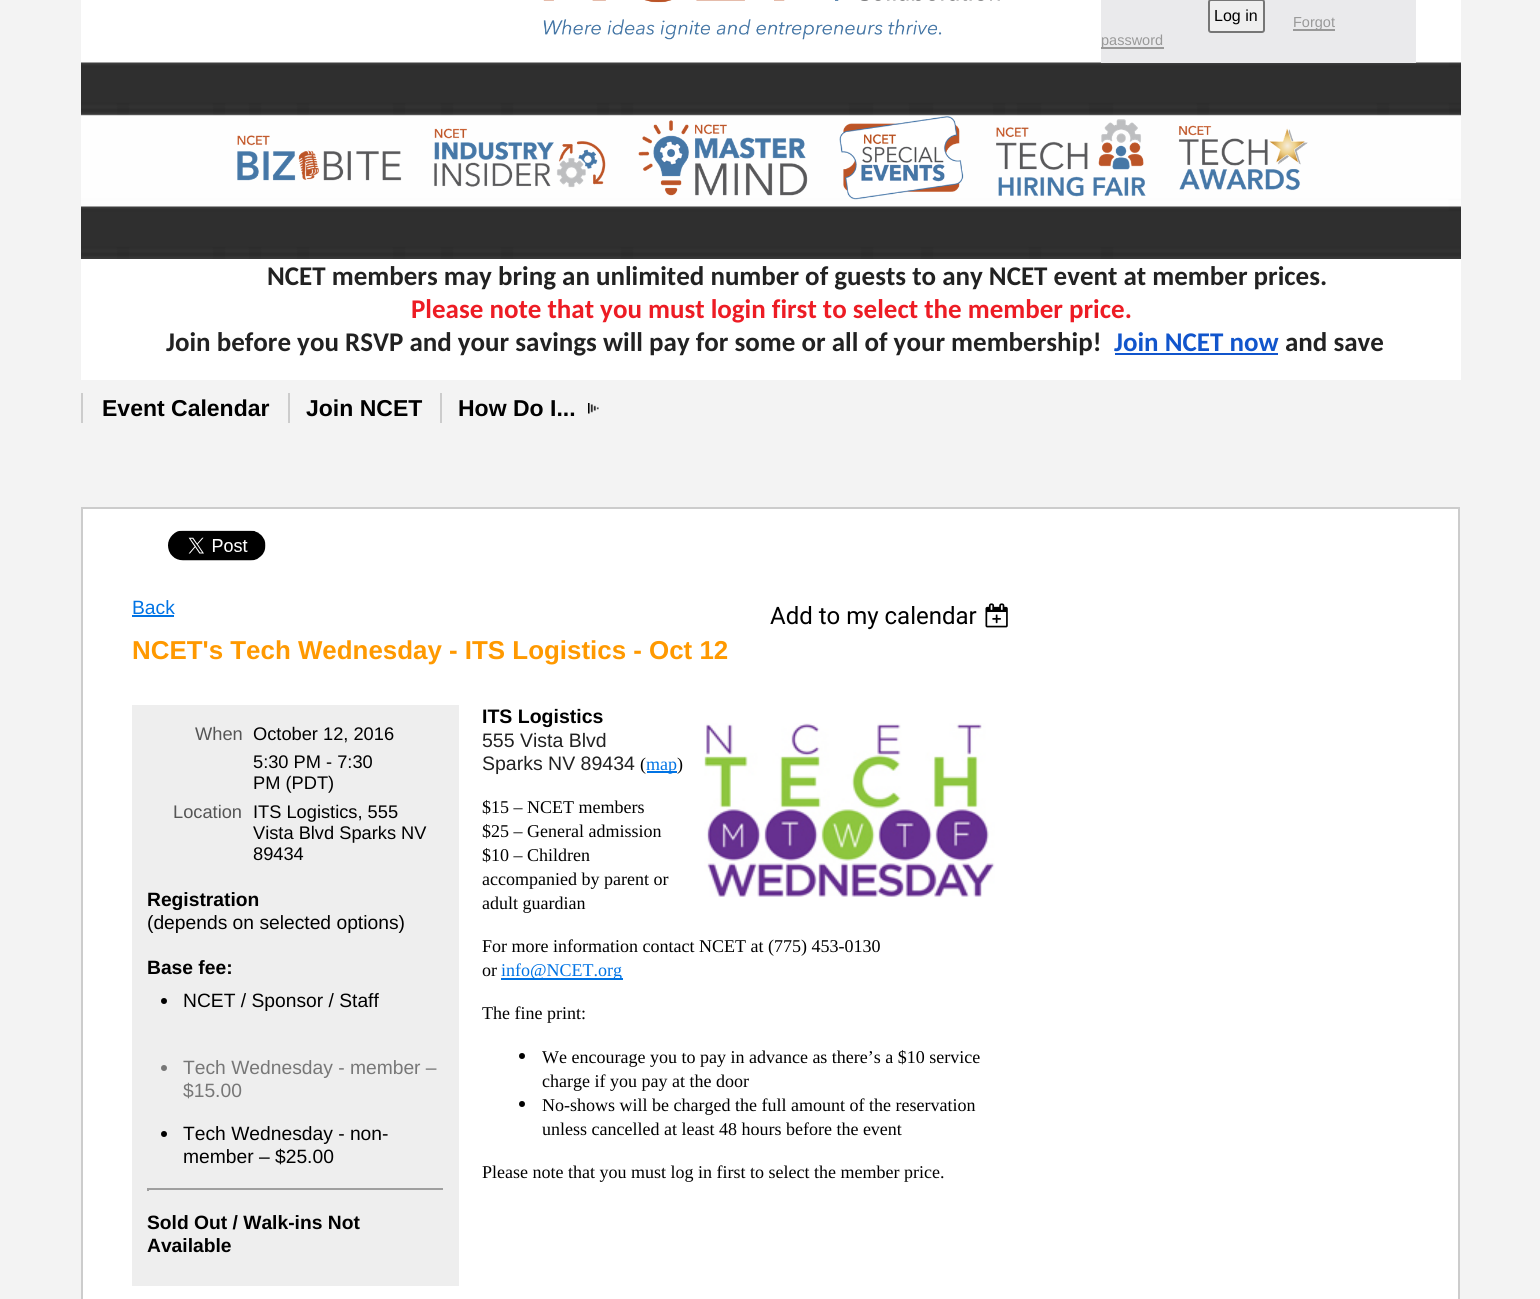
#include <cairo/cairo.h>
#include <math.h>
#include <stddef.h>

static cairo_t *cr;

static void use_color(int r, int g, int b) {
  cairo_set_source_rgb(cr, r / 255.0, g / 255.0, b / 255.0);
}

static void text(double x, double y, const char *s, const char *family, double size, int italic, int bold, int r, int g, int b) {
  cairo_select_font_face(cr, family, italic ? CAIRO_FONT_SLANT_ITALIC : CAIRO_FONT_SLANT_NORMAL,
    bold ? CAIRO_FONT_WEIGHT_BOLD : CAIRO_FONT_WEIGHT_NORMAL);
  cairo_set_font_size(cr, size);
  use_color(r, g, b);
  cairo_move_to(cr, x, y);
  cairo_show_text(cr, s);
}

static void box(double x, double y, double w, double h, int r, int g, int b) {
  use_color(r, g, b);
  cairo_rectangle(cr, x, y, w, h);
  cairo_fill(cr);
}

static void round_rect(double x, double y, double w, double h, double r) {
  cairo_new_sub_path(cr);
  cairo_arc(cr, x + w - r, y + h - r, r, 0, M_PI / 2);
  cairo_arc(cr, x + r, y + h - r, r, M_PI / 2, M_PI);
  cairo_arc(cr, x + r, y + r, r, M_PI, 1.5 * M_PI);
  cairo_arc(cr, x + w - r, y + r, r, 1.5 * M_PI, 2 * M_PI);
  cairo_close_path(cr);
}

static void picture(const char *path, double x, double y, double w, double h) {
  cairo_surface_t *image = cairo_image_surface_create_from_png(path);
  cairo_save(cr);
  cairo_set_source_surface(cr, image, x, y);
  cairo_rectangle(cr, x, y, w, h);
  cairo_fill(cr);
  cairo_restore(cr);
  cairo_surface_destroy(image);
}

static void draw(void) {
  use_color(243, 243, 243);
  cairo_paint(cr);
  box(81, 0, 1380, 380, 255, 255, 255);
  picture("img_04.png", 81, 62, 1380, 197);
  box(1101, 0, 315, 63, 234, 234, 236);
  use_color(239, 239, 239);
  round_rect(1209, 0, 55, 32, 2);
  cairo_fill_preserve(cr);
  use_color(118, 118, 118);
  cairo_stroke(cr);
  box(1293, 29, 42, 2, 153, 153, 153);
  box(1101, 47, 63, 2, 153, 153, 153);
  use_color(255, 255, 255);
  cairo_rectangle(cr, 82, 508, 1377, 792);
  cairo_fill_preserve(cr);
  use_color(204, 204, 204);
  cairo_stroke(cr);
  picture("img_01.png", 168, 530, 98, 31);
  box(132, 615, 42, 2, 0, 115, 228);
  picture("img_02.png", 985, 603, 23, 25);
  box(132, 705, 327, 581, 238, 238, 238);
  use_color(0, 0, 0);
  cairo_arc(cr, 164, 1001, 3, 0, 2 * M_PI);
  cairo_fill(cr);
  use_color(119, 119, 119);
  cairo_arc(cr, 164, 1068, 3, 0, 2 * M_PI);
  cairo_fill(cr);
  use_color(0, 0, 0);
  cairo_arc(cr, 164, 1134, 3, 0, 2 * M_PI);
  cairo_fill(cr);
  box(147, 1188, 297, 2, 159, 159, 159);
  box(443, 1188, 1, 3, 238, 238, 238);
  box(147, 1188, 2, 3, 159, 159, 159);
  picture("img_03.png", 704, 723, 291, 174);
  box(647, 771, 30, 2, 0, 115, 228);
  box(501, 978, 122, 2, 0, 115, 228);
  use_color(0, 0, 0);
  cairo_arc(cr, 522, 1056, 3, 0, 2 * M_PI);
  cairo_fill(cr);
  cairo_arc(cr, 522, 1104, 3, 0, 2 * M_PI);
  cairo_fill(cr);
  picture("img_05.png", 543, 0, 457, 40);
  picture("img_06.png", 237, 116, 1071, 84);
  box(1115, 353, 163, 2, 17, 85, 204);
  box(81, 393, 2, 30, 204, 204, 204);
  box(288, 393, 2, 30, 204, 204, 204);
  box(440, 393, 2, 30, 204, 204, 204);
  picture("img_07.png", 588, 403, 11, 11);
  text(1214, 21, "Log in", "Liberation Sans", 16, 0, 0, 0, 0, 0);
  text(1293, 27, "Forgot", "Liberation Sans", 14.5, 0, 0, 153, 153, 153);
  text(1101, 45, "password", "Liberation Sans", 14.5, 0, 0, 153, 153, 153);
  text(132, 614, "Back", "Liberation Sans", 19.25, 0, 0, 0, 115, 228);
  text(770, 624, "Add to my calendar", "Roboto", 24, 0, 0, 0, 0, 0);
  text(132, 659, "NCET's Tech Wednesday - ITS Logistics - Oct 12", "Liberation Sans", 25.9, 0, 1, 255, 153, 0);
  text(195, 740, "When", "Liberation Sans", 18.25, 0, 0, 85, 85, 85);
  text(253, 740, "October 12, 2016", "Liberation Sans", 18.25, 0, 0, 0, 0, 0);
  text(253, 768, "5:30 PM - 7:30", "Liberation Sans", 18.25, 0, 0, 0, 0, 0);
  text(253, 789, "PM (PDT)", "Liberation Sans", 18.25, 0, 0, 0, 0, 0);
  text(173, 818, "Location", "Liberation Sans", 18.25, 0, 0, 85, 85, 85);
  text(253, 818, "ITS Logistics, 555", "Liberation Sans", 18.25, 0, 0, 0, 0, 0);
  text(253, 839, "Vista Blvd Sparks NV", "Liberation Sans", 18.25, 0, 0, 0, 0, 0);
  text(253, 860, "89434", "Liberation Sans", 18.25, 0, 0, 0, 0, 0);
  text(147, 906, "Registration", "Liberation Sans", 19.25, 0, 1, 0, 0, 0);
  text(147, 929, "(depends on selected options)", "Liberation Sans", 19.25, 0, 0, 0, 0, 0);
  text(147, 974, "Base fee:", "Liberation Sans", 19.25, 0, 1, 0, 0, 0);
  text(183, 1007, "NCET / Sponsor / Staff", "Liberation Sans", 19.25, 0, 0, 0, 0, 0);
  text(183, 1074, "Tech Wednesday - member –", "Liberation Sans", 19.25, 0, 0, 119, 119, 119);
  text(183, 1097, "$15.00", "Liberation Sans", 19.25, 0, 0, 119, 119, 119);
  text(183, 1140, "Tech Wednesday - non-", "Liberation Sans", 19.25, 0, 0, 0, 0, 0);
  text(183, 1163, "member – $25.00", "Liberation Sans", 19.25, 0, 0, 0, 0, 0);
  text(147, 1229, "Sold Out / Walk-ins Not", "Liberation Sans", 19.25, 0, 1, 0, 0, 0);
  text(147, 1252, "Available", "Liberation Sans", 19.25, 0, 1, 0, 0, 0);
  text(482, 723, "ITS Logistics", "Liberation Sans", 19.5, 0, 1, 0, 0, 0);
  text(482, 747, "555 Vista Blvd", "Liberation Sans", 19.5, 0, 0, 34, 34, 34);
  text(482, 770, "Sparks NV 89434", "Liberation Sans", 19.5, 0, 0, 34, 34, 34);
  text(640, 770, "(", "Liberation Serif", 18, 0, 0, 0, 0, 0);
  text(646, 770, "map", "Liberation Serif", 18, 0, 0, 0, 115, 228);
  text(677, 770, ")", "Liberation Serif", 18, 0, 0, 0, 0, 0);
  text(482, 813, "$15 – NCET members", "Liberation Serif", 18, 0, 0, 0, 0, 0);
  text(482, 837, "$25 – General admission", "Liberation Serif", 18, 0, 0, 0, 0, 0);
  text(482, 861, "$10 – Children", "Liberation Serif", 18, 0, 0, 0, 0, 0);
  text(482, 885, "accompanied by parent or", "Liberation Serif", 18, 0, 0, 0, 0, 0);
  text(482, 909, "adult guardian", "Liberation Serif", 18, 0, 0, 0, 0, 0);
  text(482, 952, "For more information contact NCET at (775) 453-0130", "Liberation Serif", 18, 0, 0, 0, 0, 0);
  text(482, 976, "or", "Liberation Serif", 18, 0, 0, 0, 0, 0);
  text(501, 976, "info@NCET.org", "Liberation Serif", 18, 0, 0, 0, 115, 228);
  text(482, 1019, "The fine print:", "Liberation Serif", 18, 0, 0, 0, 0, 0);
  text(542, 1063, "We encourage you to pay in advance as there’s a $10 service", "Liberation Serif", 18, 0, 0, 0, 0, 0);
  text(542, 1087, "charge if you pay at the door", "Liberation Serif", 18, 0, 0, 0, 0, 0);
  text(542, 1111, "No-shows will be charged the full amount of the reservation", "Liberation Serif", 18, 0, 0, 0, 0, 0);
  text(542, 1135, "unless cancelled at least 48 hours before the event", "Liberation Serif", 18, 0, 0, 0, 0, 0);
  text(482, 1178, "Please note that you must log in first to select the member price.", "Liberation Serif", 18, 0, 0, 0, 0, 0);
  text(267, 285, "NCET members may bring an unlimited number of guests to any NCET event at member prices.", "Carlito", 27, 0, 1, 34, 34, 34);
  text(411, 318, "Please note that you must login first to select the member price.", "Carlito", 27, 0, 1, 237, 28, 36);
  text(166, 351, "Join before you RSVP and your savings will pay for some or all of your membership!", "Carlito", 27, 0, 1, 34, 34, 34);
  text(1114, 351, "Join NCET now", "Carlito", 27, 0, 1, 17, 85, 204);
  text(1285, 351, "and save", "Carlito", 27, 0, 1, 34, 34, 34);
  text(102, 416, "Event Calendar", "Liberation Sans", 23, 0, 1, 0, 0, 0);
  text(306, 416, "Join NCET", "Liberation Sans", 23, 0, 1, 0, 0, 0);
  text(458, 416, "How Do I...", "Liberation Sans", 23, 0, 1, 0, 0, 0);
}

int main(void) {
  cairo_surface_t *surface = cairo_image_surface_create(CAIRO_FORMAT_RGB24, 1540, 1299);
  cr = cairo_create(surface);
  cairo_font_options_t *options = cairo_font_options_create();
  cairo_font_options_set_hint_metrics(options, CAIRO_HINT_METRICS_OFF);
  cairo_font_options_set_hint_style(options, CAIRO_HINT_STYLE_NONE);
  cairo_set_font_options(cr, options);
  cairo_set_miter_limit(cr, 4);
  draw();
  cairo_surface_write_to_png(surface, "out.png");
  cairo_font_options_destroy(options);
  cairo_destroy(cr);
  cairo_surface_destroy(surface);
  return 0;
}
